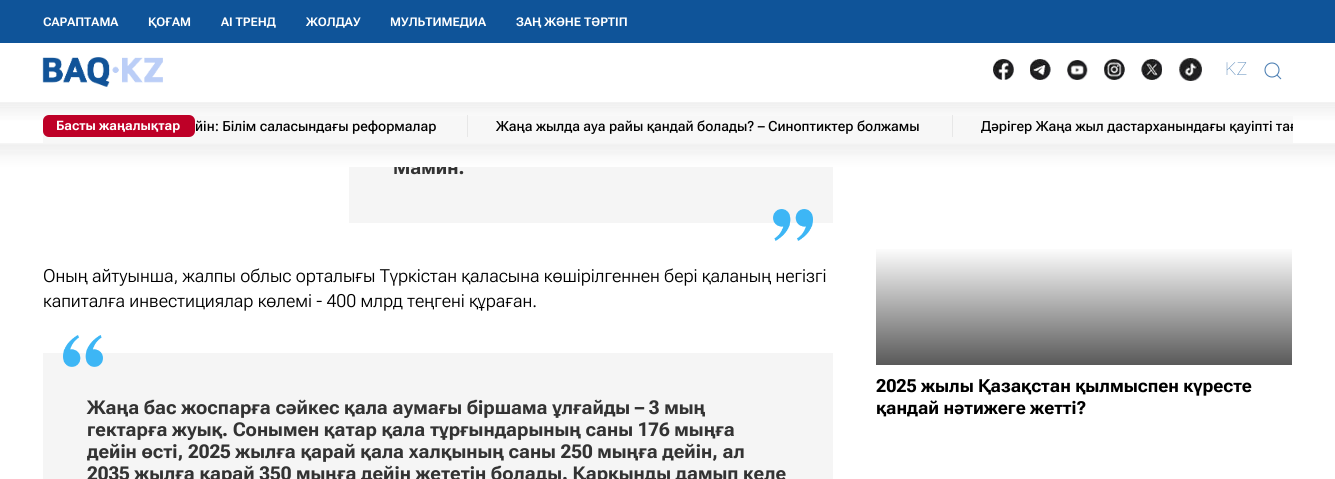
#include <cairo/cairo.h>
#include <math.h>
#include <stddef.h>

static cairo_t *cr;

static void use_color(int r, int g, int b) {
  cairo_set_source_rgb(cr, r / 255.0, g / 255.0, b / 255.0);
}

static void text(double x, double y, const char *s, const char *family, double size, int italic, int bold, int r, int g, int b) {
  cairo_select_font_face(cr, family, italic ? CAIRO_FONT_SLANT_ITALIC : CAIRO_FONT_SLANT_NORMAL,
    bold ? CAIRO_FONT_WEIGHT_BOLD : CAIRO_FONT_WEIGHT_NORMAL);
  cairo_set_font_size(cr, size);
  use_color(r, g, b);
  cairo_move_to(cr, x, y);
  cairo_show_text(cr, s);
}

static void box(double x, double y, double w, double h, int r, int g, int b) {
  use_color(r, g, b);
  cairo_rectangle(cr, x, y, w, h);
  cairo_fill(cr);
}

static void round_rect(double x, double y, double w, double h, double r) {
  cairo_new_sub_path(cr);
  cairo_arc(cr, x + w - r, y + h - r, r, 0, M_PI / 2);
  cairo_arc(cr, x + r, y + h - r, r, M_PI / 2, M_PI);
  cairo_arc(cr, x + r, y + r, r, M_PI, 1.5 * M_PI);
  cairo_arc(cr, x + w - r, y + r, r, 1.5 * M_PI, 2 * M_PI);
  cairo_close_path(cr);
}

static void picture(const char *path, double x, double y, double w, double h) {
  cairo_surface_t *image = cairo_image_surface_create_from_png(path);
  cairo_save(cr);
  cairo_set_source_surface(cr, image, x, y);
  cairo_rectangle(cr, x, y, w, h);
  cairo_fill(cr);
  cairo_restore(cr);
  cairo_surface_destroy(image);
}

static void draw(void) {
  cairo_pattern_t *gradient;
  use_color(255, 255, 255);
  cairo_paint(cr);
  box(0, 0, 1335, 43, 15, 84, 153);
  picture("img_01.png", 42, 57, 121, 30);
  picture("img_02.png", 993, 59, 21, 21);
  picture("img_03.png", 1030, 59, 21, 21);
  picture("img_04.png", 1067, 60, 21, 20);
  picture("img_05.png", 1104, 59, 21, 21);
  picture("img_06.png", 1141, 59, 21, 21);
  picture("img_07.png", 1179, 58, 23, 23);
  cairo_arc(cr, 1272, 70, 7, 0, 2 * M_PI);
  use_color(79, 129, 180);
  cairo_set_line_width(cr, 1.1);
  cairo_stroke(cr);
  cairo_new_path(cr);
  cairo_move_to(cr, 1277, 75);
  cairo_line_to(cr, 1281, 79);
  cairo_close_path(cr);
  cairo_stroke(cr);
  picture("img_09.png", 0, 102, 1335, 26);
  box(43, 116, 1250, 27, 247, 247, 247);
  use_color(190, 0, 39);
  round_rect(43, 115, 152, 22, 6);
  cairo_fill(cr);
  box(467, 115, 1, 22, 231, 231, 231);
  box(952, 115, 1, 22, 231, 231, 231);
  box(349, 167, 484, 56, 245, 245, 245);
  picture("img_10.png", 773, 209, 40, 32);
  box(43, 353, 790, 126, 245, 245, 245);
  picture("img_11.png", 63, 335, 40, 32);
  gradient = cairo_pattern_create_linear(1084, 247, 1084, 365);
  cairo_pattern_add_color_stop_rgba(gradient, 0, 1, 1, 1, 1);
  cairo_pattern_add_color_stop_rgba(gradient, 1, 0.349, 0.349, 0.349, 1);
  cairo_set_source(cr, gradient);
  cairo_pattern_destroy(gradient);
  cairo_rectangle(cr, 876, 249, 416, 116);
  cairo_fill(cr);
  text(43, 26, "САРАПТАМА", "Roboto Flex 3", 12, 1, 1, 255, 255, 255);
  text(148, 26, "ҚОҒАМ", "Roboto Flex 3", 12, 1, 1, 255, 255, 255);
  text(221, 26, "AI ТРЕНД", "Roboto Flex 3", 12, 1, 1, 255, 255, 255);
  text(306, 26, "ЖОЛДАУ", "Roboto Flex 3", 12, 1, 1, 255, 255, 255);
  text(390, 26, "МУЛЬТИМЕДИА", "Roboto Flex 3", 12, 1, 1, 255, 255, 255);
  text(516, 26, "ЗАҢ ЖӘНЕ ТӘРТІП", "Roboto Flex 3", 12, 1, 1, 255, 255, 255);
  text(1225, 75, "KZ", "Roboto Thin", 18, 0, 0, 79, 129, 180);
  text(56, 130, "Басты жаңалықтар", "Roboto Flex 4", 13, 1, 1, 255, 255, 255);
  text(195, 131, "йін: Білім саласындағы реформалар", "Roboto Flex Medium", 14, 1, 0, 0, 0, 0);
  text(496, 131, "Жаңа жылда ауа райы қандай болады? – Синоптиктер болжамы", "Roboto Flex Medium", 14, 1, 0, 0, 0, 0);
  cairo_save(cr);
  cairo_rectangle(cr, 43, 110, 1250, 33);
  cairo_clip(cr);
  text(981, 131, "Дәрігер Жаңа жыл дастарханындағы қауіпті тағ", "Roboto Flex Medium", 14, 1, 0, 0, 0, 0);
  cairo_restore(cr);
  text(393, 174, "Мамин.", "Roboto Flex", 19, 1, 1, 51, 51, 51);
  picture("img_08.png", 0, 143, 1335, 24);
  text(43, 282, "Оның айтуынша, жалпы облыс орталығы Түркістан қаласына көшірілгеннен бері қаланың негізгі", "Roboto Flex Light", 18, 1, 0, 0, 0, 0);
  text(43, 307, "капиталға инвестициялар көлемі - 400 млрд теңгені құраған.", "Roboto Flex Light", 18, 1, 0, 0, 0, 0);
  text(87, 414, "Жаңа бас жоспарға сәйкес қала аумағы біршама ұлғайды – 3 мың", "Roboto Flex", 19, 1, 1, 51, 51, 51);
  text(87, 436, "гектарға жуық. Сонымен қатар қала тұрғындарының саны 176 мыңға", "Roboto Flex", 19, 1, 1, 51, 51, 51);
  text(87, 458, "дейін өсті, 2025 жылға қарай қала халқының саны 250 мыңға дейін, ал", "Roboto Flex", 19, 1, 1, 51, 51, 51);
  text(87, 480, "2035 жылға қарай 350 мыңға дейін жететін болады. Қарқынды дамып келе", "Roboto Flex", 19, 1, 1, 51, 51, 51);
  text(876, 392, "2025 жылы Қазақстан қылмыспен күресте", "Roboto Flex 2", 18, 1, 1, 0, 0, 0);
  text(876, 414, "қандай нәтижеге жетті?", "Roboto Flex 2", 18, 1, 1, 0, 0, 0);
}

int main(void) {
  cairo_surface_t *surface = cairo_image_surface_create(CAIRO_FORMAT_RGB24, 1335, 479);
  cr = cairo_create(surface);
  cairo_font_options_t *options = cairo_font_options_create();
  cairo_font_options_set_hint_metrics(options, CAIRO_HINT_METRICS_OFF);
  cairo_font_options_set_hint_style(options, CAIRO_HINT_STYLE_NONE);
  cairo_set_font_options(cr, options);
  cairo_set_miter_limit(cr, 4);
  draw();
  cairo_surface_write_to_png(surface, "out.png");
  cairo_font_options_destroy(options);
  cairo_destroy(cr);
  cairo_surface_destroy(surface);
  return 0;
}
